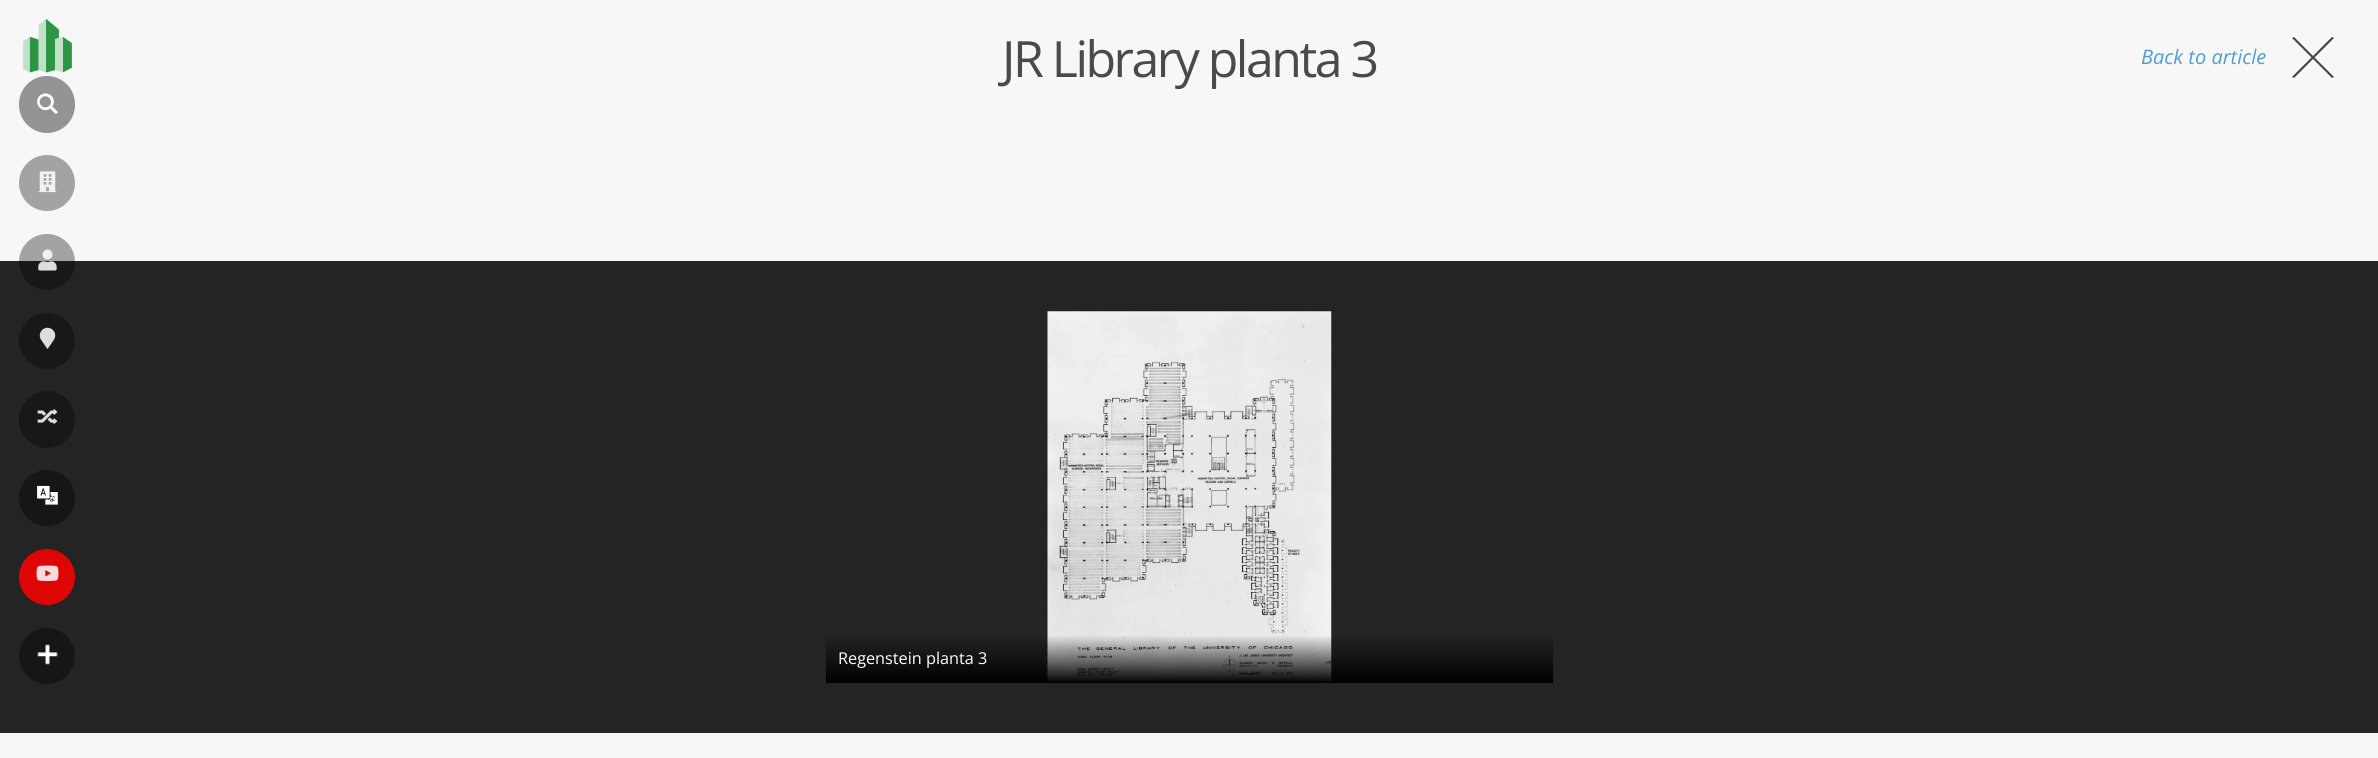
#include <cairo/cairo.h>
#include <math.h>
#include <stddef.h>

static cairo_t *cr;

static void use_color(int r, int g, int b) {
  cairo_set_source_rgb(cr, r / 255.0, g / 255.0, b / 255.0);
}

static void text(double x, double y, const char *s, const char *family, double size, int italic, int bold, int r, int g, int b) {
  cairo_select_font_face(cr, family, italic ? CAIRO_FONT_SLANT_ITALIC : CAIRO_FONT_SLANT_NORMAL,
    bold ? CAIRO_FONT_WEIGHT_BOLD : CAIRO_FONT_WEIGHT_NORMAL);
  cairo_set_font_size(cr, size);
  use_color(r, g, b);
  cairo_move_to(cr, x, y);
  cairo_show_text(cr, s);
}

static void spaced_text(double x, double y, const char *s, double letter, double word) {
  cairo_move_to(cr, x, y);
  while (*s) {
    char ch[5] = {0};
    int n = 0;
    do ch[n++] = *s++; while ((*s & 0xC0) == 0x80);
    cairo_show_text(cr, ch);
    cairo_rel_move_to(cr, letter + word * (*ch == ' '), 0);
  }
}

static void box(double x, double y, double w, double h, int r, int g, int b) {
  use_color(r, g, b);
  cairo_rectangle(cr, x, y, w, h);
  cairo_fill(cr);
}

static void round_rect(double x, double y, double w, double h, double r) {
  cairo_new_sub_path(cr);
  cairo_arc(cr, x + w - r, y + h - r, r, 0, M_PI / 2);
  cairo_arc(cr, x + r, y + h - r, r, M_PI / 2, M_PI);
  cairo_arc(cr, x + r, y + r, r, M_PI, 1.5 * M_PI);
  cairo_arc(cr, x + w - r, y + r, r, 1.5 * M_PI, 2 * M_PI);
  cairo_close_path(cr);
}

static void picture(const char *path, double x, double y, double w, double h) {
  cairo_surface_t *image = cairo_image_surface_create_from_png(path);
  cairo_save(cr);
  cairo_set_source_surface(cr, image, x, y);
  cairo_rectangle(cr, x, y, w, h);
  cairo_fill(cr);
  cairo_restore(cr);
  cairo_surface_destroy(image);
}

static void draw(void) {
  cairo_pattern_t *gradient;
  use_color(247, 247, 247);
  cairo_paint(cr);
  picture("img_01.png", 23, 19, 49, 54);
  use_color(148, 148, 148);
  round_rect(19, 76, 56, 57, 28);
  cairo_fill(cr);
  picture("img_02.png", 37, 93, 21, 21);
  use_color(163, 163, 163);
  cairo_arc(cr, 47, 183, 28, 0, 2 * M_PI);
  cairo_fill(cr);
  picture("img_03.png", 38, 171, 19, 22);
  box(0, 261, 2378, 472, 36, 36, 36);
  cairo_set_source_rgba(cr, 0, 0, 0, 0.34);
  cairo_arc(cr, 47, 262, 28, 0, 2 * M_PI);
  cairo_fill(cr);
  picture("img_04.png", 38, 249, 19, 22);
  use_color(24, 24, 24);
  cairo_arc(cr, 47, 341, 28, 0, 2 * M_PI);
  cairo_fill(cr);
  picture("img_05.png", 39, 327, 17, 22);
  round_rect(19, 391, 56, 57, 28);
  cairo_fill(cr);
  picture("img_06.png", 37, 409, 21, 16);
  use_color(22, 22, 22);
  cairo_arc(cr, 47, 498, 28, 0, 2 * M_PI);
  cairo_fill(cr);
  picture("img_07.png", 37, 485, 21, 20);
  use_color(222, 5, 5);
  cairo_arc(cr, 47, 577, 28, 0, 2 * M_PI);
  cairo_fill(cr);
  picture("img_08.png", 36, 565, 23, 16);
  use_color(22, 22, 22);
  cairo_arc(cr, 47, 656, 28, 0, 2 * M_PI);
  cairo_fill(cr);
  picture("img_09.png", 37, 644, 21, 21);
  use_color(68, 68, 68);
  cairo_new_path(cr);
  cairo_move_to(cr, 2294, 37);
  cairo_line_to(cr, 2334, 77);
  cairo_line_to(cr, 2332, 78);
  cairo_line_to(cr, 2292, 38);
  cairo_close_path(cr);
  cairo_fill(cr);
  cairo_new_path(cr);
  cairo_move_to(cr, 2292, 77);
  cairo_line_to(cr, 2332, 37);
  cairo_line_to(cr, 2334, 38);
  cairo_line_to(cr, 2294, 78);
  cairo_close_path(cr);
  cairo_fill(cr);
  picture("img_10.png", 1047, 311, 285, 372);
  gradient = cairo_pattern_create_linear(1189, 635, 1189, 683);
  cairo_pattern_add_color_stop_rgba(gradient, 0, 0, 0, 0, 0);
  cairo_pattern_add_color_stop_rgba(gradient, 1, 0, 0, 0, 1);
  cairo_set_source(cr, gradient);
  cairo_pattern_destroy(gradient);
  cairo_rectangle(cr, 826, 636, 727, 47);
  cairo_fill(cr);
  cairo_select_font_face(cr, "Open Sans", CAIRO_FONT_SLANT_NORMAL, CAIRO_FONT_WEIGHT_NORMAL);
  cairo_set_font_size(cr, 50);
  use_color(74, 74, 74);
  spaced_text(1002, 77, "JR Library planta 3", -2.5, 0);
  text(2141, 64, "Back to article", "Open Sans", 20, 1, 0, 80, 157, 216);
  text(838, 664, "Regenstein planta 3", "Open Sans", 16.25, 0, 0, 255, 255, 255);
}

int main(void) {
  cairo_surface_t *surface = cairo_image_surface_create(CAIRO_FORMAT_RGB24, 2378, 758);
  cr = cairo_create(surface);
  cairo_font_options_t *options = cairo_font_options_create();
  cairo_font_options_set_hint_metrics(options, CAIRO_HINT_METRICS_OFF);
  cairo_font_options_set_hint_style(options, CAIRO_HINT_STYLE_NONE);
  cairo_set_font_options(cr, options);
  cairo_set_miter_limit(cr, 4);
  draw();
  cairo_surface_write_to_png(surface, "out.png");
  cairo_font_options_destroy(options);
  cairo_destroy(cr);
  cairo_surface_destroy(surface);
  return 0;
}
